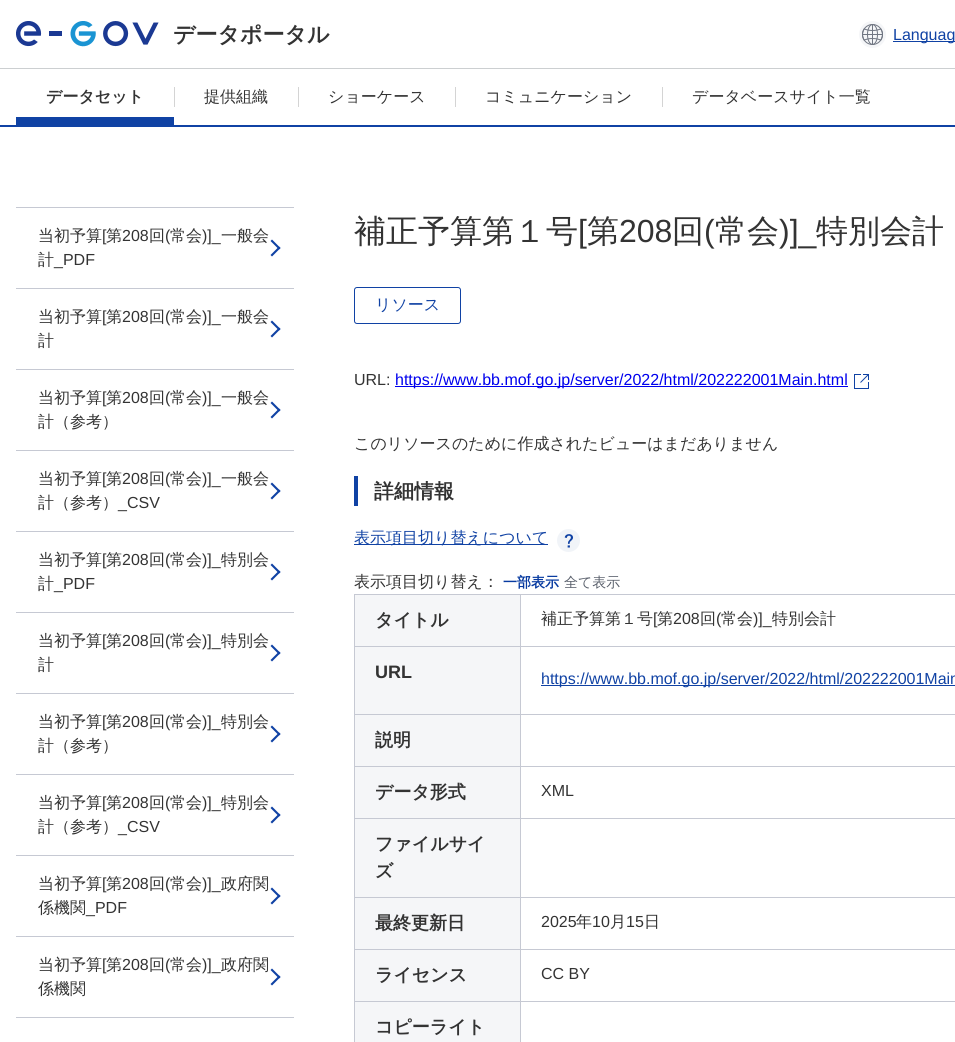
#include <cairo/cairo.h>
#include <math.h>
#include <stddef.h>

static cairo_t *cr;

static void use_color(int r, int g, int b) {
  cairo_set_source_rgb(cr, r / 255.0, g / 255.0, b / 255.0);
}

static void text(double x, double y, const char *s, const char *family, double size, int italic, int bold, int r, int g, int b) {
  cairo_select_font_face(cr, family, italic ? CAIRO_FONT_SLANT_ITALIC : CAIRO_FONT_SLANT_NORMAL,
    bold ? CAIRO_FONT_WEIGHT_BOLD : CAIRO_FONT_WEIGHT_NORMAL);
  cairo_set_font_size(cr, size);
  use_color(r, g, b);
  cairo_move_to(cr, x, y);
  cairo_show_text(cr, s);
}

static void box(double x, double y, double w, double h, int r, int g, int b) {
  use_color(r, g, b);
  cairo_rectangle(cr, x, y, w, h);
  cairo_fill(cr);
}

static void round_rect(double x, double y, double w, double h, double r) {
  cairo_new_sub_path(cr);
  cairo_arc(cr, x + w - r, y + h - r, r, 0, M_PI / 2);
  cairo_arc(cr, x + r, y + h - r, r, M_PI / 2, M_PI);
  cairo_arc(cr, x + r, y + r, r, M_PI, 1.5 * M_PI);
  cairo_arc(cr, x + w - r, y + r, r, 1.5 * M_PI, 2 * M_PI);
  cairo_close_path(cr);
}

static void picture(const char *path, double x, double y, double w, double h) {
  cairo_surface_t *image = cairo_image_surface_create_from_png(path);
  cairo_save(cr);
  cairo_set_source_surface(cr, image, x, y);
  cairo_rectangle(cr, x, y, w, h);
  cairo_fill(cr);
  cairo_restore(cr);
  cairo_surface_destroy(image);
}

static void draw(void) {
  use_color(255, 255, 255);
  cairo_paint(cr);
  box(0, 68, 955, 1, 204, 207, 209);
  picture("img_01.png", 16, 21, 143, 26);
  picture("img_02.png", 859, 21, 27, 27);
  box(893, 41, 62, 1, 16, 66, 164);
  box(0, 125, 955, 2, 16, 66, 164);
  box(16, 117, 158, 8, 16, 66, 164);
  box(174, 87, 1, 20, 212, 212, 212);
  box(298, 87, 1, 20, 212, 212, 212);
  box(455, 87, 1, 20, 212, 212, 212);
  box(662, 87, 1, 20, 212, 212, 212);
  box(16, 207, 278, 1, 198, 201, 211);
  box(16, 288, 278, 1, 198, 201, 211);
  use_color(16, 66, 164);
  cairo_new_path(cr);
  cairo_move_to(cr, 270.5, 241);
  cairo_line_to(cr, 272, 239.5);
  cairo_line_to(cr, 280.5, 248);
  cairo_line_to(cr, 279, 249.5);
  cairo_close_path(cr);
  cairo_fill(cr);
  cairo_new_path(cr);
  cairo_move_to(cr, 270.5, 255);
  cairo_line_to(cr, 279, 246.5);
  cairo_line_to(cr, 280.5, 248);
  cairo_line_to(cr, 272, 256.5);
  cairo_close_path(cr);
  cairo_fill(cr);
  box(16, 369, 278, 1, 198, 201, 211);
  use_color(16, 66, 164);
  cairo_new_path(cr);
  cairo_move_to(cr, 270.5, 322);
  cairo_line_to(cr, 272, 320.5);
  cairo_line_to(cr, 280.5, 329);
  cairo_line_to(cr, 279, 330.5);
  cairo_close_path(cr);
  cairo_fill(cr);
  cairo_new_path(cr);
  cairo_move_to(cr, 270.5, 336);
  cairo_line_to(cr, 279, 327.5);
  cairo_line_to(cr, 280.5, 329);
  cairo_line_to(cr, 272, 337.5);
  cairo_close_path(cr);
  cairo_fill(cr);
  box(16, 450, 278, 1, 198, 201, 211);
  use_color(16, 66, 164);
  cairo_new_path(cr);
  cairo_move_to(cr, 270.5, 403);
  cairo_line_to(cr, 272, 401.5);
  cairo_line_to(cr, 280.5, 410);
  cairo_line_to(cr, 279, 411.5);
  cairo_close_path(cr);
  cairo_fill(cr);
  cairo_new_path(cr);
  cairo_move_to(cr, 270.5, 417);
  cairo_line_to(cr, 279, 408.5);
  cairo_line_to(cr, 280.5, 410);
  cairo_line_to(cr, 272, 418.5);
  cairo_close_path(cr);
  cairo_fill(cr);
  box(16, 531, 278, 1, 198, 201, 211);
  use_color(16, 66, 164);
  cairo_new_path(cr);
  cairo_move_to(cr, 270.5, 484);
  cairo_line_to(cr, 272, 482.5);
  cairo_line_to(cr, 280.5, 491);
  cairo_line_to(cr, 279, 492.5);
  cairo_close_path(cr);
  cairo_fill(cr);
  cairo_new_path(cr);
  cairo_move_to(cr, 270.5, 498);
  cairo_line_to(cr, 279, 489.5);
  cairo_line_to(cr, 280.5, 491);
  cairo_line_to(cr, 272, 499.5);
  cairo_close_path(cr);
  cairo_fill(cr);
  box(16, 612, 278, 1, 198, 201, 211);
  use_color(16, 66, 164);
  cairo_new_path(cr);
  cairo_move_to(cr, 270.5, 565);
  cairo_line_to(cr, 272, 563.5);
  cairo_line_to(cr, 280.5, 572);
  cairo_line_to(cr, 279, 573.5);
  cairo_close_path(cr);
  cairo_fill(cr);
  cairo_new_path(cr);
  cairo_move_to(cr, 270.5, 579);
  cairo_line_to(cr, 279, 570.5);
  cairo_line_to(cr, 280.5, 572);
  cairo_line_to(cr, 272, 580.5);
  cairo_close_path(cr);
  cairo_fill(cr);
  box(16, 693, 278, 1, 198, 201, 211);
  use_color(16, 66, 164);
  cairo_new_path(cr);
  cairo_move_to(cr, 270.5, 646);
  cairo_line_to(cr, 272, 644.5);
  cairo_line_to(cr, 280.5, 653);
  cairo_line_to(cr, 279, 654.5);
  cairo_close_path(cr);
  cairo_fill(cr);
  cairo_new_path(cr);
  cairo_move_to(cr, 270.5, 660);
  cairo_line_to(cr, 279, 651.5);
  cairo_line_to(cr, 280.5, 653);
  cairo_line_to(cr, 272, 661.5);
  cairo_close_path(cr);
  cairo_fill(cr);
  box(16, 774, 278, 1, 198, 201, 211);
  use_color(16, 66, 164);
  cairo_new_path(cr);
  cairo_move_to(cr, 270.5, 727);
  cairo_line_to(cr, 272, 725.5);
  cairo_line_to(cr, 280.5, 734);
  cairo_line_to(cr, 279, 735.5);
  cairo_close_path(cr);
  cairo_fill(cr);
  cairo_new_path(cr);
  cairo_move_to(cr, 270.5, 741);
  cairo_line_to(cr, 279, 732.5);
  cairo_line_to(cr, 280.5, 734);
  cairo_line_to(cr, 272, 742.5);
  cairo_close_path(cr);
  cairo_fill(cr);
  box(16, 855, 278, 1, 198, 201, 211);
  use_color(16, 66, 164);
  cairo_new_path(cr);
  cairo_move_to(cr, 270.5, 808);
  cairo_line_to(cr, 272, 806.5);
  cairo_line_to(cr, 280.5, 815);
  cairo_line_to(cr, 279, 816.5);
  cairo_close_path(cr);
  cairo_fill(cr);
  cairo_new_path(cr);
  cairo_move_to(cr, 270.5, 822);
  cairo_line_to(cr, 279, 813.5);
  cairo_line_to(cr, 280.5, 815);
  cairo_line_to(cr, 272, 823.5);
  cairo_close_path(cr);
  cairo_fill(cr);
  box(16, 936, 278, 1, 198, 201, 211);
  use_color(16, 66, 164);
  cairo_new_path(cr);
  cairo_move_to(cr, 270.5, 889);
  cairo_line_to(cr, 272, 887.5);
  cairo_line_to(cr, 280.5, 896);
  cairo_line_to(cr, 279, 897.5);
  cairo_close_path(cr);
  cairo_fill(cr);
  cairo_new_path(cr);
  cairo_move_to(cr, 270.5, 903);
  cairo_line_to(cr, 279, 894.5);
  cairo_line_to(cr, 280.5, 896);
  cairo_line_to(cr, 272, 904.5);
  cairo_close_path(cr);
  cairo_fill(cr);
  box(16, 1017, 278, 1, 198, 201, 211);
  use_color(16, 66, 164);
  cairo_new_path(cr);
  cairo_move_to(cr, 270.5, 970);
  cairo_line_to(cr, 272, 968.5);
  cairo_line_to(cr, 280.5, 977);
  cairo_line_to(cr, 279, 978.5);
  cairo_close_path(cr);
  cairo_fill(cr);
  cairo_new_path(cr);
  cairo_move_to(cr, 270.5, 984);
  cairo_line_to(cr, 279, 975.5);
  cairo_line_to(cr, 280.5, 977);
  cairo_line_to(cr, 272, 985.5);
  cairo_close_path(cr);
  cairo_fill(cr);
  round_rect(354.5, 287.5, 106, 36, 2.5);
  cairo_set_line_width(cr, 1);
  cairo_stroke(cr);
  box(395, 386, 453, 1, 0, 0, 238);
  picture("img_03.png", 854, 374, 15, 15);
  box(354, 476, 4, 30, 16, 66, 164);
  box(354, 544, 194, 1, 16, 66, 164);
  picture("img_04.png", 557, 529, 23, 23);
  box(355, 595, 165, 51, 245, 246, 248);
  box(520, 594, 435, 1, 198, 201, 211);
  box(520, 646, 435, 1, 198, 201, 211);
  box(520, 714, 435, 1, 198, 201, 211);
  box(520, 766, 435, 1, 198, 201, 211);
  box(520, 818, 435, 1, 198, 201, 211);
  box(520, 897, 435, 1, 198, 201, 211);
  box(520, 949, 435, 1, 198, 201, 211);
  box(520, 1001, 435, 1, 198, 201, 211);
  box(520, 1001, 1, 41, 198, 201, 211);
  box(354, 1001, 167, 1, 198, 201, 211);
  box(520, 949, 1, 53, 198, 201, 211);
  box(354, 949, 167, 1, 198, 201, 211);
  box(520, 897, 1, 53, 198, 201, 211);
  box(354, 897, 167, 1, 198, 201, 211);
  box(520, 818, 1, 80, 198, 201, 211);
  box(354, 818, 167, 1, 198, 201, 211);
  box(520, 766, 1, 53, 198, 201, 211);
  box(354, 766, 167, 1, 198, 201, 211);
  box(520, 714, 1, 53, 198, 201, 211);
  box(354, 714, 167, 1, 198, 201, 211);
  box(520, 646, 1, 69, 198, 201, 211);
  box(354, 646, 167, 1, 198, 201, 211);
  box(520, 594, 1, 53, 198, 201, 211);
  box(354, 594, 167, 1, 198, 201, 211);
  box(354, 1001, 1, 41, 198, 201, 211);
  box(354, 949, 1, 53, 198, 201, 211);
  box(354, 897, 1, 53, 198, 201, 211);
  box(354, 818, 1, 80, 198, 201, 211);
  box(354, 766, 1, 53, 198, 201, 211);
  box(354, 714, 1, 53, 198, 201, 211);
  box(354, 646, 1, 69, 198, 201, 211);
  box(354, 594, 1, 53, 198, 201, 211);
  box(355, 647, 165, 67, 245, 246, 248);
  box(541, 685, 414, 1, 16, 66, 164);
  box(355, 715, 165, 51, 245, 246, 248);
  box(355, 767, 165, 51, 245, 246, 248);
  box(355, 819, 165, 78, 245, 246, 248);
  box(355, 898, 165, 51, 245, 246, 248);
  box(355, 950, 165, 51, 245, 246, 248);
  box(355, 1002, 165, 40, 245, 246, 248);
  text(173, 42, "データポータル", "WenQuanYi Zen Hei", 22, 0, 1, 51, 51, 51);
  text(893, 40, "Languag", "Liberation Sans", 16, 0, 0, 16, 66, 164);
  text(46, 102, "データセット", "WenQuanYi Zen Hei", 16, 0, 1, 51, 51, 51);
  text(204, 102, "提供組織", "WenQuanYi Zen Hei Medium", 16, 0, 0, 51, 51, 51);
  text(328, 102, "ショーケース", "WenQuanYi Zen Hei Medium", 16, 0, 0, 51, 51, 51);
  text(485, 102, "コミュニケーション", "WenQuanYi Zen Hei Medium", 16, 0, 0, 51, 51, 51);
  text(692, 102, "データベースサイト一覧", "WenQuanYi Zen Hei Medium", 16, 0, 0, 51, 51, 51);
  text(38, 241, "当初予算", "WenQuanYi Zen Hei Medium", 16, 0, 0, 51, 51, 51);
  text(102, 241, "[", "Liberation Sans", 16, 0, 0, 51, 51, 51);
  text(106, 241, "第", "WenQuanYi Zen Hei Medium", 16, 0, 0, 51, 51, 51);
  text(122, 241, "208", "Liberation Sans", 16, 0, 0, 51, 51, 51);
  text(149, 241, "回", "WenQuanYi Zen Hei Medium", 16, 0, 0, 51, 51, 51);
  text(165, 241, "(", "Liberation Sans", 16, 0, 0, 51, 51, 51);
  text(170, 241, "常会", "WenQuanYi Zen Hei Medium", 16, 0, 0, 51, 51, 51);
  text(202, 241, ")]_", "Liberation Sans", 16, 0, 0, 51, 51, 51);
  text(221, 241, "一般会", "WenQuanYi Zen Hei Medium", 16, 0, 0, 51, 51, 51);
  text(38, 265, "計", "WenQuanYi Zen Hei Medium", 16, 0, 0, 51, 51, 51);
  text(54, 265, "_PDF", "Liberation Sans", 16, 0, 0, 51, 51, 51);
  text(38, 322, "当初予算", "WenQuanYi Zen Hei Medium", 16, 0, 0, 51, 51, 51);
  text(102, 322, "[", "Liberation Sans", 16, 0, 0, 51, 51, 51);
  text(106, 322, "第", "WenQuanYi Zen Hei Medium", 16, 0, 0, 51, 51, 51);
  text(122, 322, "208", "Liberation Sans", 16, 0, 0, 51, 51, 51);
  text(149, 322, "回", "WenQuanYi Zen Hei Medium", 16, 0, 0, 51, 51, 51);
  text(165, 322, "(", "Liberation Sans", 16, 0, 0, 51, 51, 51);
  text(170, 322, "常会", "WenQuanYi Zen Hei Medium", 16, 0, 0, 51, 51, 51);
  text(202, 322, ")]_", "Liberation Sans", 16, 0, 0, 51, 51, 51);
  text(221, 322, "一般会", "WenQuanYi Zen Hei Medium", 16, 0, 0, 51, 51, 51);
  text(38, 346, "計", "WenQuanYi Zen Hei Medium", 16, 0, 0, 51, 51, 51);
  text(38, 403, "当初予算", "WenQuanYi Zen Hei Medium", 16, 0, 0, 51, 51, 51);
  text(102, 403, "[", "Liberation Sans", 16, 0, 0, 51, 51, 51);
  text(106, 403, "第", "WenQuanYi Zen Hei Medium", 16, 0, 0, 51, 51, 51);
  text(122, 403, "208", "Liberation Sans", 16, 0, 0, 51, 51, 51);
  text(149, 403, "回", "WenQuanYi Zen Hei Medium", 16, 0, 0, 51, 51, 51);
  text(165, 403, "(", "Liberation Sans", 16, 0, 0, 51, 51, 51);
  text(170, 403, "常会", "WenQuanYi Zen Hei Medium", 16, 0, 0, 51, 51, 51);
  text(202, 403, ")]_", "Liberation Sans", 16, 0, 0, 51, 51, 51);
  text(221, 403, "一般会", "WenQuanYi Zen Hei Medium", 16, 0, 0, 51, 51, 51);
  text(38, 427, "計（参考）", "WenQuanYi Zen Hei Medium", 16, 0, 0, 51, 51, 51);
  text(38, 484, "当初予算", "WenQuanYi Zen Hei Medium", 16, 0, 0, 51, 51, 51);
  text(102, 484, "[", "Liberation Sans", 16, 0, 0, 51, 51, 51);
  text(106, 484, "第", "WenQuanYi Zen Hei Medium", 16, 0, 0, 51, 51, 51);
  text(122, 484, "208", "Liberation Sans", 16, 0, 0, 51, 51, 51);
  text(149, 484, "回", "WenQuanYi Zen Hei Medium", 16, 0, 0, 51, 51, 51);
  text(165, 484, "(", "Liberation Sans", 16, 0, 0, 51, 51, 51);
  text(170, 484, "常会", "WenQuanYi Zen Hei Medium", 16, 0, 0, 51, 51, 51);
  text(202, 484, ")]_", "Liberation Sans", 16, 0, 0, 51, 51, 51);
  text(221, 484, "一般会", "WenQuanYi Zen Hei Medium", 16, 0, 0, 51, 51, 51);
  text(38, 508, "計（参考）", "WenQuanYi Zen Hei Medium", 16, 0, 0, 51, 51, 51);
  text(118, 508, "_CSV", "Liberation Sans", 16, 0, 0, 51, 51, 51);
  text(38, 565, "当初予算", "WenQuanYi Zen Hei Medium", 16, 0, 0, 51, 51, 51);
  text(102, 565, "[", "Liberation Sans", 16, 0, 0, 51, 51, 51);
  text(106, 565, "第", "WenQuanYi Zen Hei Medium", 16, 0, 0, 51, 51, 51);
  text(122, 565, "208", "Liberation Sans", 16, 0, 0, 51, 51, 51);
  text(149, 565, "回", "WenQuanYi Zen Hei Medium", 16, 0, 0, 51, 51, 51);
  text(165, 565, "(", "Liberation Sans", 16, 0, 0, 51, 51, 51);
  text(170, 565, "常会", "WenQuanYi Zen Hei Medium", 16, 0, 0, 51, 51, 51);
  text(202, 565, ")]_", "Liberation Sans", 16, 0, 0, 51, 51, 51);
  text(221, 565, "特別会", "WenQuanYi Zen Hei Medium", 16, 0, 0, 51, 51, 51);
  text(38, 589, "計", "WenQuanYi Zen Hei Medium", 16, 0, 0, 51, 51, 51);
  text(54, 589, "_PDF", "Liberation Sans", 16, 0, 0, 51, 51, 51);
  text(38, 646, "当初予算", "WenQuanYi Zen Hei Medium", 16, 0, 0, 51, 51, 51);
  text(102, 646, "[", "Liberation Sans", 16, 0, 0, 51, 51, 51);
  text(106, 646, "第", "WenQuanYi Zen Hei Medium", 16, 0, 0, 51, 51, 51);
  text(122, 646, "208", "Liberation Sans", 16, 0, 0, 51, 51, 51);
  text(149, 646, "回", "WenQuanYi Zen Hei Medium", 16, 0, 0, 51, 51, 51);
  text(165, 646, "(", "Liberation Sans", 16, 0, 0, 51, 51, 51);
  text(170, 646, "常会", "WenQuanYi Zen Hei Medium", 16, 0, 0, 51, 51, 51);
  text(202, 646, ")]_", "Liberation Sans", 16, 0, 0, 51, 51, 51);
  text(221, 646, "特別会", "WenQuanYi Zen Hei Medium", 16, 0, 0, 51, 51, 51);
  text(38, 670, "計", "WenQuanYi Zen Hei Medium", 16, 0, 0, 51, 51, 51);
  text(38, 727, "当初予算", "WenQuanYi Zen Hei Medium", 16, 0, 0, 51, 51, 51);
  text(102, 727, "[", "Liberation Sans", 16, 0, 0, 51, 51, 51);
  text(106, 727, "第", "WenQuanYi Zen Hei Medium", 16, 0, 0, 51, 51, 51);
  text(122, 727, "208", "Liberation Sans", 16, 0, 0, 51, 51, 51);
  text(149, 727, "回", "WenQuanYi Zen Hei Medium", 16, 0, 0, 51, 51, 51);
  text(165, 727, "(", "Liberation Sans", 16, 0, 0, 51, 51, 51);
  text(170, 727, "常会", "WenQuanYi Zen Hei Medium", 16, 0, 0, 51, 51, 51);
  text(202, 727, ")]_", "Liberation Sans", 16, 0, 0, 51, 51, 51);
  text(221, 727, "特別会", "WenQuanYi Zen Hei Medium", 16, 0, 0, 51, 51, 51);
  text(38, 751, "計（参考）", "WenQuanYi Zen Hei Medium", 16, 0, 0, 51, 51, 51);
  text(38, 808, "当初予算", "WenQuanYi Zen Hei Medium", 16, 0, 0, 51, 51, 51);
  text(102, 808, "[", "Liberation Sans", 16, 0, 0, 51, 51, 51);
  text(106, 808, "第", "WenQuanYi Zen Hei Medium", 16, 0, 0, 51, 51, 51);
  text(122, 808, "208", "Liberation Sans", 16, 0, 0, 51, 51, 51);
  text(149, 808, "回", "WenQuanYi Zen Hei Medium", 16, 0, 0, 51, 51, 51);
  text(165, 808, "(", "Liberation Sans", 16, 0, 0, 51, 51, 51);
  text(170, 808, "常会", "WenQuanYi Zen Hei Medium", 16, 0, 0, 51, 51, 51);
  text(202, 808, ")]_", "Liberation Sans", 16, 0, 0, 51, 51, 51);
  text(221, 808, "特別会", "WenQuanYi Zen Hei Medium", 16, 0, 0, 51, 51, 51);
  text(38, 832, "計（参考）", "WenQuanYi Zen Hei Medium", 16, 0, 0, 51, 51, 51);
  text(118, 832, "_CSV", "Liberation Sans", 16, 0, 0, 51, 51, 51);
  text(38, 889, "当初予算", "WenQuanYi Zen Hei Medium", 16, 0, 0, 51, 51, 51);
  text(102, 889, "[", "Liberation Sans", 16, 0, 0, 51, 51, 51);
  text(106, 889, "第", "WenQuanYi Zen Hei Medium", 16, 0, 0, 51, 51, 51);
  text(122, 889, "208", "Liberation Sans", 16, 0, 0, 51, 51, 51);
  text(149, 889, "回", "WenQuanYi Zen Hei Medium", 16, 0, 0, 51, 51, 51);
  text(165, 889, "(", "Liberation Sans", 16, 0, 0, 51, 51, 51);
  text(170, 889, "常会", "WenQuanYi Zen Hei Medium", 16, 0, 0, 51, 51, 51);
  text(202, 889, ")]_", "Liberation Sans", 16, 0, 0, 51, 51, 51);
  text(221, 889, "政府関", "WenQuanYi Zen Hei Medium", 16, 0, 0, 51, 51, 51);
  text(38, 913, "係機関", "WenQuanYi Zen Hei Medium", 16, 0, 0, 51, 51, 51);
  text(86, 913, "_PDF", "Liberation Sans", 16, 0, 0, 51, 51, 51);
  text(38, 970, "当初予算", "WenQuanYi Zen Hei Medium", 16, 0, 0, 51, 51, 51);
  text(102, 970, "[", "Liberation Sans", 16, 0, 0, 51, 51, 51);
  text(106, 970, "第", "WenQuanYi Zen Hei Medium", 16, 0, 0, 51, 51, 51);
  text(122, 970, "208", "Liberation Sans", 16, 0, 0, 51, 51, 51);
  text(149, 970, "回", "WenQuanYi Zen Hei Medium", 16, 0, 0, 51, 51, 51);
  text(165, 970, "(", "Liberation Sans", 16, 0, 0, 51, 51, 51);
  text(170, 970, "常会", "WenQuanYi Zen Hei Medium", 16, 0, 0, 51, 51, 51);
  text(202, 970, ")]_", "Liberation Sans", 16, 0, 0, 51, 51, 51);
  text(221, 970, "政府関", "WenQuanYi Zen Hei Medium", 16, 0, 0, 51, 51, 51);
  text(38, 994, "係機関", "WenQuanYi Zen Hei Medium", 16, 0, 0, 51, 51, 51);
  text(354, 242, "補正予算第１号", "WenQuanYi Zen Hei Medium", 32, 0, 0, 51, 51, 51);
  text(578, 242, "[", "Liberation Sans", 32, 0, 0, 51, 51, 51);
  text(587, 242, "第", "WenQuanYi Zen Hei Medium", 32, 0, 0, 51, 51, 51);
  text(619, 242, "208", "Liberation Sans", 32, 0, 0, 51, 51, 51);
  text(672, 242, "回", "WenQuanYi Zen Hei Medium", 32, 0, 0, 51, 51, 51);
  text(704, 242, "(", "Liberation Sans", 32, 0, 0, 51, 51, 51);
  text(715, 242, "常会", "WenQuanYi Zen Hei Medium", 32, 0, 0, 51, 51, 51);
  text(779, 242, ")]_", "Liberation Sans", 32, 0, 0, 51, 51, 51);
  text(816, 242, "特別会計", "WenQuanYi Zen Hei Medium", 32, 0, 0, 51, 51, 51);
  text(375, 310, "リソース", "WenQuanYi Zen Hei Medium", 16, 0, 0, 16, 66, 164);
  text(354, 385, "URL:", "Liberation Sans", 16, 0, 0, 51, 51, 51);
  text(395, 385, "https://www.bb.mof.go.jp/server/2022/html/202222001Main.html", "Liberation Sans", 16, 0, 0, 0, 0, 238);
  text(354, 449, "このリソースのために作成されたビューはまだありません", "WenQuanYi Zen Hei Medium", 16, 0, 0, 51, 51, 51);
  text(374, 498, "詳細情報", "WenQuanYi Zen Hei", 20, 0, 1, 51, 51, 51);
  text(354, 543, "表示項目切り替えについて", "WenQuanYi Zen Hei Medium", 16, 0, 0, 16, 66, 164);
  text(354, 587, "表示項目切り替え：", "WenQuanYi Zen Hei Medium", 16, 0, 0, 51, 51, 51);
  text(503, 587, "一部表示", "WenQuanYi Zen Hei", 14, 0, 1, 7, 58, 160);
  text(564, 587, "全て表示", "WenQuanYi Zen Hei Medium", 14, 0, 0, 90, 96, 108);
  text(375, 626, "タイトル", "WenQuanYi Zen Hei", 18, 0, 1, 51, 51, 51);
  text(541, 624, "補正予算第１号", "WenQuanYi Zen Hei Medium", 16, 0, 0, 51, 51, 51);
  text(653, 624, "[", "Liberation Sans", 16, 0, 0, 51, 51, 51);
  text(657, 624, "第", "WenQuanYi Zen Hei Medium", 16, 0, 0, 51, 51, 51);
  text(673, 624, "208", "Liberation Sans", 16, 0, 0, 51, 51, 51);
  text(700, 624, "回", "WenQuanYi Zen Hei Medium", 16, 0, 0, 51, 51, 51);
  text(716, 624, "(", "Liberation Sans", 16, 0, 0, 51, 51, 51);
  text(721, 624, "常会", "WenQuanYi Zen Hei Medium", 16, 0, 0, 51, 51, 51);
  text(753, 624, ")]_", "Liberation Sans", 16, 0, 0, 51, 51, 51);
  text(772, 624, "特別会計", "WenQuanYi Zen Hei Medium", 16, 0, 0, 51, 51, 51);
  text(375, 678, "URL", "Liberation Sans", 18, 0, 1, 51, 51, 51);
  text(541, 684, "https://www.bb.mof.go.jp/server/2022/html/202222001Main", "Liberation Sans", 16, 0, 0, 16, 66, 164);
  text(375, 746, "説明", "WenQuanYi Zen Hei", 18, 0, 1, 51, 51, 51);
  text(375, 798, "データ形式", "WenQuanYi Zen Hei", 18, 0, 1, 51, 51, 51);
  text(541, 796, "XML", "Liberation Sans", 16, 0, 0, 51, 51, 51);
  text(375, 850, "ファイルサイ", "WenQuanYi Zen Hei", 18, 0, 1, 51, 51, 51);
  text(375, 877, "ズ", "WenQuanYi Zen Hei", 18, 0, 1, 51, 51, 51);
  text(375, 929, "最終更新日", "WenQuanYi Zen Hei", 18, 0, 1, 51, 51, 51);
  text(541, 927, "2025", "Liberation Sans", 16, 0, 0, 51, 51, 51);
  text(576, 927, "年", "WenQuanYi Zen Hei Medium", 16, 0, 0, 51, 51, 51);
  text(592, 927, "10", "Liberation Sans", 16, 0, 0, 51, 51, 51);
  text(610, 927, "月", "WenQuanYi Zen Hei Medium", 16, 0, 0, 51, 51, 51);
  text(626, 927, "15", "Liberation Sans", 16, 0, 0, 51, 51, 51);
  text(644, 927, "日", "WenQuanYi Zen Hei Medium", 16, 0, 0, 51, 51, 51);
  text(375, 981, "ライセンス", "WenQuanYi Zen Hei", 18, 0, 1, 51, 51, 51);
  text(541, 979, "CC BY", "Liberation Sans", 16, 0, 0, 51, 51, 51);
  text(375, 1033, "コピーライト", "WenQuanYi Zen Hei", 18, 0, 1, 51, 51, 51);
}

int main(void) {
  cairo_surface_t *surface = cairo_image_surface_create(CAIRO_FORMAT_RGB24, 955, 1042);
  cr = cairo_create(surface);
  cairo_font_options_t *options = cairo_font_options_create();
  cairo_font_options_set_hint_metrics(options, CAIRO_HINT_METRICS_OFF);
  cairo_font_options_set_hint_style(options, CAIRO_HINT_STYLE_NONE);
  cairo_set_font_options(cr, options);
  cairo_set_miter_limit(cr, 4);
  draw();
  cairo_surface_write_to_png(surface, "out.png");
  cairo_font_options_destroy(options);
  cairo_destroy(cr);
  cairo_surface_destroy(surface);
  return 0;
}
